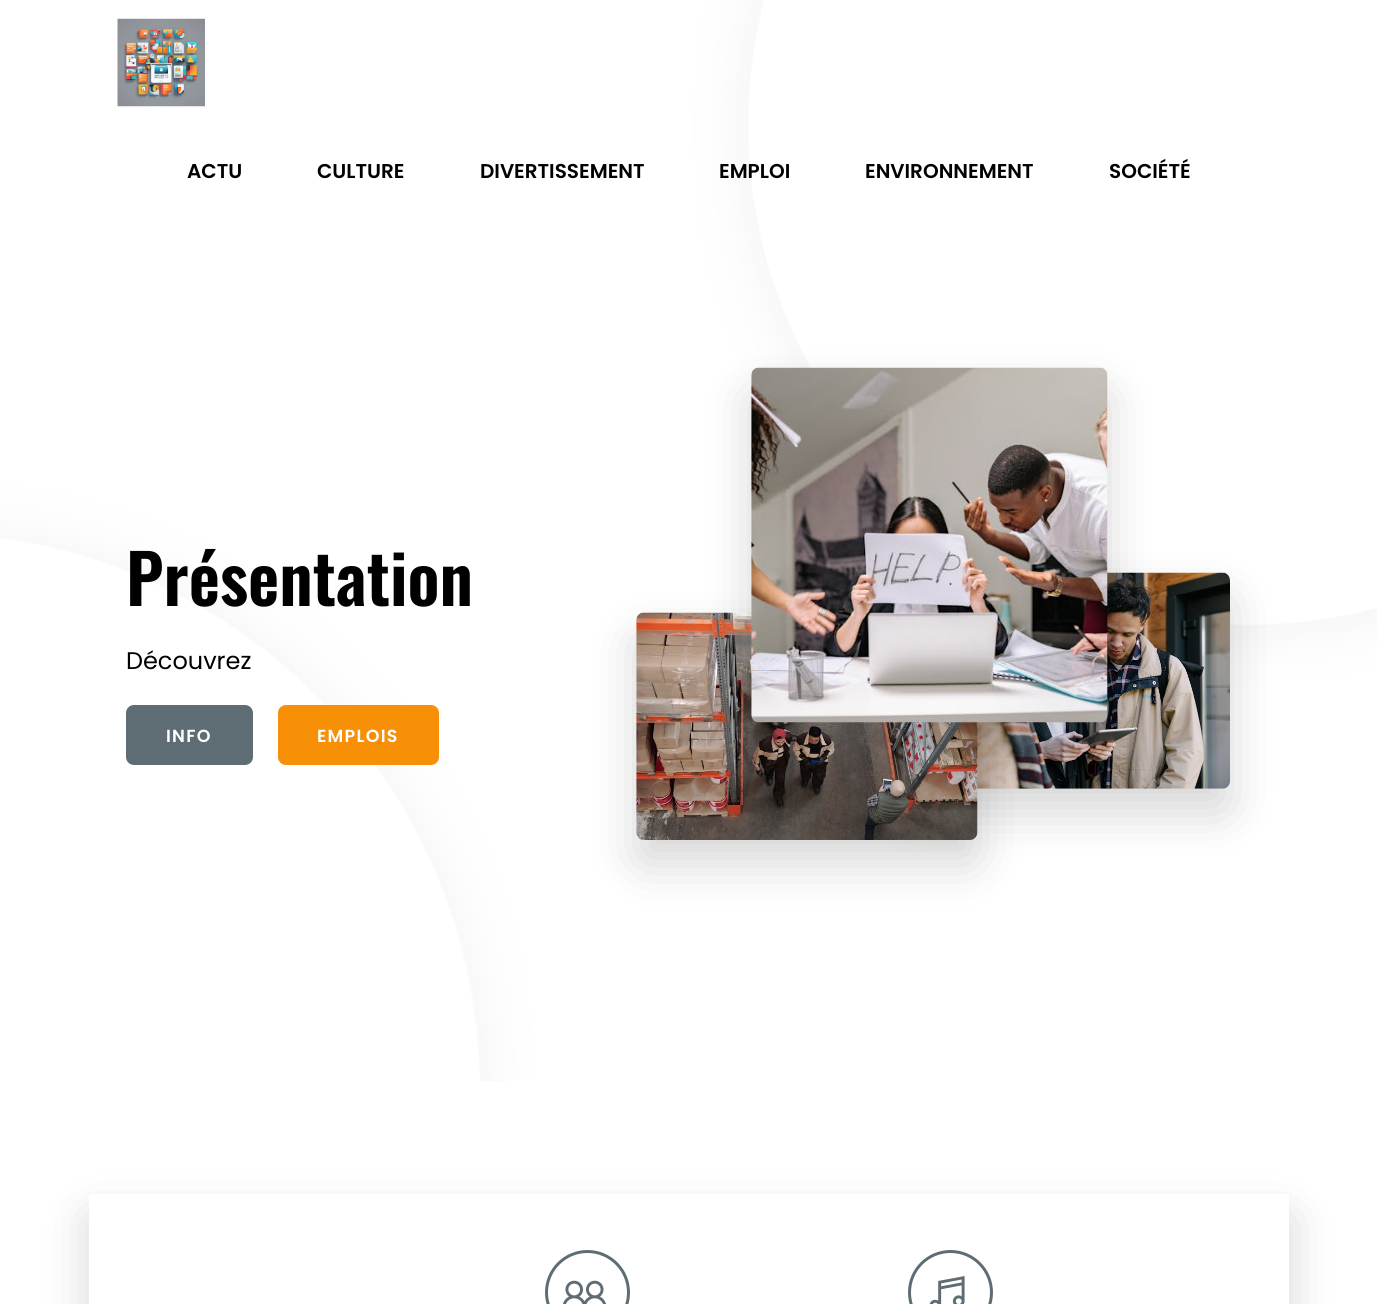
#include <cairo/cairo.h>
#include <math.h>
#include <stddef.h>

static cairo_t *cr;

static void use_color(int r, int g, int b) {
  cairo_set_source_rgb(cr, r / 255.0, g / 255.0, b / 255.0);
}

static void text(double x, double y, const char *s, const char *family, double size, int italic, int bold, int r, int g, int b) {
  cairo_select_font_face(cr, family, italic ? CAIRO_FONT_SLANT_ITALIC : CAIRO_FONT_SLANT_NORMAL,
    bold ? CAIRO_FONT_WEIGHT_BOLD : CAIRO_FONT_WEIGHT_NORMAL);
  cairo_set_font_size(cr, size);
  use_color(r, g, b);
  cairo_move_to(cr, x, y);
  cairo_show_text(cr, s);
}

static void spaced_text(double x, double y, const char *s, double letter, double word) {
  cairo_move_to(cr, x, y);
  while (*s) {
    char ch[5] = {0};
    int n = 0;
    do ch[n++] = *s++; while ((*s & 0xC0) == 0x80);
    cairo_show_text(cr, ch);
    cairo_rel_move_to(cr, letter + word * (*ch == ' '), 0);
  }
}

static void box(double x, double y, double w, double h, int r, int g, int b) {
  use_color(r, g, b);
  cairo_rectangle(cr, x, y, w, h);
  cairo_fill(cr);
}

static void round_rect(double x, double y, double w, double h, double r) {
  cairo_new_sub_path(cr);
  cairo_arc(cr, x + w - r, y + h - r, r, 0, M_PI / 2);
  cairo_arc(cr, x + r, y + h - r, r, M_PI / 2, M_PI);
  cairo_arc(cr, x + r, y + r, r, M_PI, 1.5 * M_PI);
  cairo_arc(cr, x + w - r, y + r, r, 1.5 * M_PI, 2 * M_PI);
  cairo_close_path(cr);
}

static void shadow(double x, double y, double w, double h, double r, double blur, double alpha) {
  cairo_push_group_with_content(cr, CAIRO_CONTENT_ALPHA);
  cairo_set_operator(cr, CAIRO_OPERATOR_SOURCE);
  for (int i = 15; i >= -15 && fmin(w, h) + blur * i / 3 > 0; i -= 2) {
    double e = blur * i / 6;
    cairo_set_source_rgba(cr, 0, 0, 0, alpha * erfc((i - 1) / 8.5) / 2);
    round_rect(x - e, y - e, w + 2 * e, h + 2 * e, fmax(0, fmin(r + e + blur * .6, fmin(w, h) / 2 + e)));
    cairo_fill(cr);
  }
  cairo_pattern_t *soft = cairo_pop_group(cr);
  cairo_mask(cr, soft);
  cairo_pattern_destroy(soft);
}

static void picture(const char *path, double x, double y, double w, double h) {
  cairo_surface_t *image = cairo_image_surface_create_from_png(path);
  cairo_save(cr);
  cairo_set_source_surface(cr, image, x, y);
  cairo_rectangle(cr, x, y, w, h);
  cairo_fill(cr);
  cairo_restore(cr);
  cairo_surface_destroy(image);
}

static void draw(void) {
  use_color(255, 255, 255);
  cairo_paint(cr);
  picture("img_02.png", 0, 0, 1377, 1081);
  picture("img_01.png", 117, 18, 88, 89);
  use_color(94, 109, 115);
  round_rect(127.5, 706.5, 124, 57, 6.5);
  cairo_fill_preserve(cr);
  cairo_set_line_width(cr, 3);
  cairo_stroke(cr);
  use_color(247, 144, 7);
  round_rect(279.5, 706.5, 158, 57, 6.5);
  cairo_fill_preserve(cr);
  cairo_stroke(cr);
  use_color(0, 0, 0);
  shadow(905, 596, 325, 217, 8, 24, 0.16);
  picture("img_05.png", 977, 572, 253, 217);
  shadow(636, 636, 342, 228, 8, 24, 0.16);
  picture("img_04.png", 636, 612, 342, 228);
  shadow(751, 391, 357, 355, 8, 24, 0.16);
  picture("img_03.png", 751, 367, 357, 356);
  shadow(89, 1218, 1200, 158, 0, 24, 0.16);
  box(89, 1194, 1200, 110, 255, 255, 255);
  cairo_arc(cr, 587.5, 1292.5, 41, 0, 2 * M_PI);
  use_color(94, 109, 115);
  cairo_stroke(cr);
  picture("img_06.png", 563, 1280, 43, 24);
  cairo_arc(cr, 950.5, 1292.5, 41, 0, 2 * M_PI);
  cairo_stroke(cr);
  picture("img_07.png", 929, 1276, 36, 28);
  text(187, 178, "ACTU", "Poppins SemiBold", 20, 0, 0, 0, 0, 0);
  text(317, 178, "CULTURE", "Poppins SemiBold", 20, 0, 0, 0, 0, 0);
  text(480, 178, "DIVERTISSEMENT", "Poppins SemiBold", 20, 0, 0, 0, 0, 0);
  text(719, 178, "EMPLOI", "Poppins SemiBold", 20, 0, 0, 0, 0, 0);
  text(865, 178, "ENVIRONNEMENT", "Poppins SemiBold", 20, 0, 0, 0, 0, 0);
  text(1109, 178, "SOCIÉTÉ", "Poppins SemiBold", 20, 0, 0, 0, 0, 0);
  text(126, 606, "Présentation", "Oswald SemiBold", 68, 0, 0, 0, 0, 0);
  text(126, 669, "Découvrez", "Poppins", 24, 0, 0, 0, 0, 0);
  cairo_select_font_face(cr, "Poppins SemiBold", CAIRO_FONT_SLANT_NORMAL, CAIRO_FONT_WEIGHT_NORMAL);
  cairo_set_font_size(cr, 17.5);
  use_color(255, 255, 255);
  spaced_text(166, 742, "INFO", 1.25, 0);
  spaced_text(317, 742, "EMPLOIS", 1.25, 0);
}

int main(void) {
  cairo_surface_t *surface = cairo_image_surface_create(CAIRO_FORMAT_RGB24, 1377, 1304);
  cr = cairo_create(surface);
  cairo_font_options_t *options = cairo_font_options_create();
  cairo_font_options_set_hint_metrics(options, CAIRO_HINT_METRICS_OFF);
  cairo_font_options_set_hint_style(options, CAIRO_HINT_STYLE_NONE);
  cairo_set_font_options(cr, options);
  cairo_set_miter_limit(cr, 4);
  draw();
  cairo_surface_write_to_png(surface, "out.png");
  cairo_font_options_destroy(options);
  cairo_destroy(cr);
  cairo_surface_destroy(surface);
  return 0;
}
